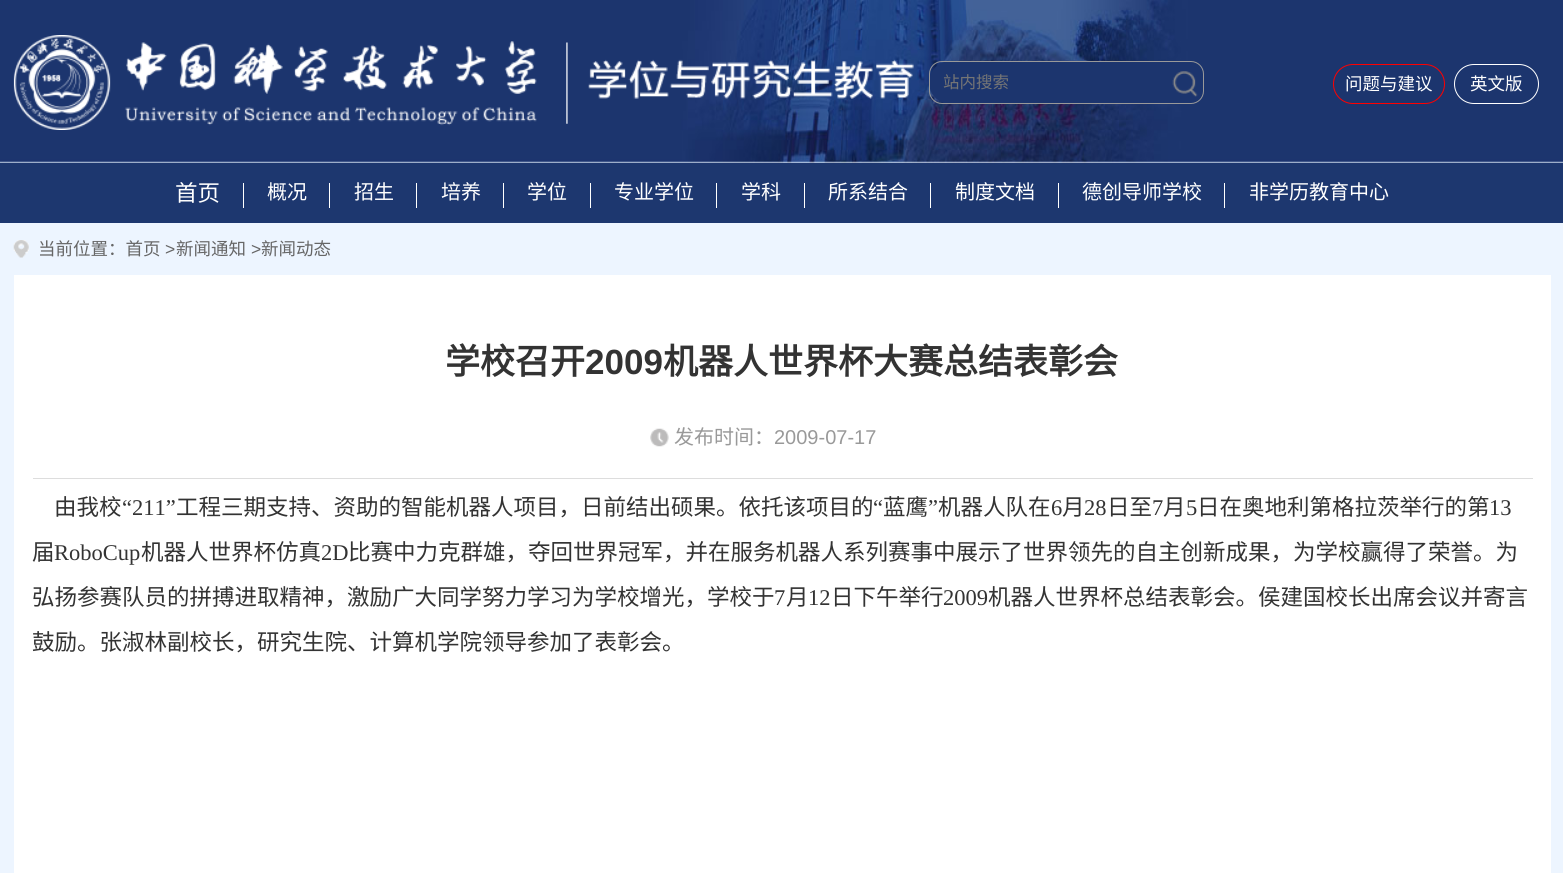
#include <cairo/cairo.h>
#include <math.h>
#include <stddef.h>

static cairo_t *cr;

static void use_color(int r, int g, int b) {
  cairo_set_source_rgb(cr, r / 255.0, g / 255.0, b / 255.0);
}

static void text(double x, double y, const char *s, const char *family, double size, int italic, int bold, int r, int g, int b) {
  cairo_select_font_face(cr, family, italic ? CAIRO_FONT_SLANT_ITALIC : CAIRO_FONT_SLANT_NORMAL,
    bold ? CAIRO_FONT_WEIGHT_BOLD : CAIRO_FONT_WEIGHT_NORMAL);
  cairo_set_font_size(cr, size);
  use_color(r, g, b);
  cairo_move_to(cr, x, y);
  cairo_show_text(cr, s);
}

static void box(double x, double y, double w, double h, int r, int g, int b) {
  use_color(r, g, b);
  cairo_rectangle(cr, x, y, w, h);
  cairo_fill(cr);
}

static void round_rect(double x, double y, double w, double h, double r) {
  cairo_new_sub_path(cr);
  cairo_arc(cr, x + w - r, y + h - r, r, 0, M_PI / 2);
  cairo_arc(cr, x + r, y + h - r, r, M_PI / 2, M_PI);
  cairo_arc(cr, x + r, y + r, r, M_PI, 1.5 * M_PI);
  cairo_arc(cr, x + w - r, y + r, r, 1.5 * M_PI, 2 * M_PI);
  cairo_close_path(cr);
}

static void picture(const char *path, double x, double y, double w, double h) {
  cairo_surface_t *image = cairo_image_surface_create_from_png(path);
  cairo_save(cr);
  cairo_set_source_surface(cr, image, x, y);
  cairo_rectangle(cr, x, y, w, h);
  cairo_fill(cr);
  cairo_restore(cr);
  cairo_surface_destroy(image);
}

static void draw(void) {
  use_color(237, 245, 255);
  cairo_paint(cr);
  picture("img_01.png", 0, 0, 1563, 163);
  picture("img_02.png", 13, 35, 901, 95);
  use_color(28, 53, 110);
  round_rect(929, 61, 279, 43, 21.5);
  cairo_fill(cr);
  round_rect(929.5, 61.5, 274, 42, 12.5);
  use_color(153, 153, 153);
  cairo_set_line_width(cr, 1);
  cairo_stroke(cr);
  picture("img_03.png", 1172, 71, 26, 26);
  round_rect(1333.5, 64.5, 111, 39, 19.5);
  use_color(255, 0, 0);
  cairo_stroke(cr);
  round_rect(1454.5, 64.5, 84, 39, 19.5);
  use_color(255, 255, 255);
  cairo_stroke(cr);
  box(0, 163, 1563, 60, 29, 55, 111);
  box(243, 183, 1, 25, 255, 255, 255);
  box(329, 183, 1, 25, 255, 255, 255);
  box(416, 183, 1, 25, 255, 255, 255);
  box(503, 183, 1, 25, 255, 255, 255);
  box(590, 183, 1, 25, 255, 255, 255);
  box(716, 183, 1, 25, 255, 255, 255);
  box(804, 183, 1, 25, 255, 255, 255);
  box(930, 183, 1, 25, 255, 255, 255);
  box(1058, 183, 1, 25, 255, 255, 255);
  box(1224, 183, 1, 25, 255, 255, 255);
  picture("img_04.png", 13, 240, 16, 18);
  box(14, 275, 1537, 598, 255, 255, 255);
  picture("img_05.png", 650, 428, 19, 19);
  box(33, 478, 1500, 1, 221, 221, 221);
  text(943, 88, "站内搜索", "Noto Sans CJK SC", 16.5, 0, 0, 117, 117, 117);
  text(1345, 90, "问题与建议", "Noto Sans CJK SC", 17.5, 0, 0, 255, 255, 255);
  text(1470, 90, "英文版", "Noto Sans CJK SC", 17.5, 0, 0, 255, 255, 255);
  text(175, 201, "首页", "Noto Sans CJK SC", 22.5, 0, 0, 255, 255, 255);
  text(267, 199, "概况", "Noto Sans CJK SC", 20, 0, 0, 255, 255, 255);
  text(354, 199, "招生", "Noto Sans CJK SC", 20, 0, 0, 255, 255, 255);
  text(441, 199, "培养", "Noto Sans CJK SC", 20, 0, 0, 255, 255, 255);
  text(527, 199, "学位", "Noto Sans CJK SC", 20, 0, 0, 255, 255, 255);
  text(614, 199, "专业学位", "Noto Sans CJK SC", 20, 0, 0, 255, 255, 255);
  text(741, 199, "学科", "Noto Sans CJK SC", 20, 0, 0, 255, 255, 255);
  text(828, 199, "所系结合", "Noto Sans CJK SC", 20, 0, 0, 255, 255, 255);
  text(955, 199, "制度文档", "Noto Sans CJK SC", 20, 0, 0, 255, 255, 255);
  text(1082, 199, "德创导师学校", "Noto Sans CJK SC", 20, 0, 0, 255, 255, 255);
  text(1249, 199, "非学历教育中心", "Noto Sans CJK SC", 20, 0, 0, 255, 255, 255);
  text(38, 255, "当前位置：首页", "Noto Sans CJK SC", 17.5, 0, 0, 102, 102, 102);
  text(165, 255, ">", "Liberation Sans", 17.5, 0, 0, 102, 102, 102);
  text(176, 255, "新闻通知", "Noto Sans CJK SC", 17.5, 0, 0, 102, 102, 102);
  text(251, 255, ">", "Liberation Sans", 17.5, 0, 0, 102, 102, 102);
  text(261, 255, "新闻动态", "Noto Sans CJK SC", 17.5, 0, 0, 102, 102, 102);
  text(445, 374, "学校召开", "Noto Sans CJK SC", 35, 0, 1, 51, 51, 51);
  text(585, 374, "2009", "Liberation Sans", 35, 0, 1, 51, 51, 51);
  text(663, 374, "机器人世界杯大赛总结表彰会", "Noto Sans CJK SC", 35, 0, 1, 51, 51, 51);
  text(674, 444, "发布时间：", "Noto Sans CJK SC", 20, 0, 0, 153, 153, 153);
  text(774, 444, "2009-07-17", "Liberation Sans", 20, 0, 0, 153, 153, 153);
  text(54, 515, "由我校", "Noto Sans CJK SC", 22.5, 0, 0, 51, 51, 51);
  text(122, 515, "“211”", "Liberation Serif", 22.5, 0, 0, 51, 51, 51);
  text(176, 515, "工程三期支持、资助的智能机器人项目，日前结出硕果。依托该项目的", "Noto Sans CJK SC", 22.5, 0, 0, 51, 51, 51);
  text(873, 515, "“", "Liberation Serif", 22.5, 0, 0, 51, 51, 51);
  text(883, 515, "蓝鹰", "Noto Sans CJK SC", 22.5, 0, 0, 51, 51, 51);
  text(928, 515, "”", "Liberation Serif", 22.5, 0, 0, 51, 51, 51);
  text(938, 515, "机器人队在", "Noto Sans CJK SC", 22.5, 0, 0, 51, 51, 51);
  text(1051, 515, "6", "Liberation Serif", 22.5, 0, 0, 51, 51, 51);
  text(1062, 515, "月", "Noto Sans CJK SC", 22.5, 0, 0, 51, 51, 51);
  text(1084, 515, "28", "Liberation Serif", 22.5, 0, 0, 51, 51, 51);
  text(1107, 515, "日至", "Noto Sans CJK SC", 22.5, 0, 0, 51, 51, 51);
  text(1152, 515, "7", "Liberation Serif", 22.5, 0, 0, 51, 51, 51);
  text(1163, 515, "月", "Noto Sans CJK SC", 22.5, 0, 0, 51, 51, 51);
  text(1186, 515, "5", "Liberation Serif", 22.5, 0, 0, 51, 51, 51);
  text(1197, 515, "日在奥地利第格拉茨举行的第", "Noto Sans CJK SC", 22.5, 0, 0, 51, 51, 51);
  text(1489, 515, "13", "Liberation Serif", 22.5, 0, 0, 51, 51, 51);
  text(32, 560, "届", "Noto Sans CJK SC", 22.5, 0, 0, 51, 51, 51);
  text(54, 560, "RoboCup", "Liberation Serif", 22.5, 0, 0, 51, 51, 51);
  text(141, 560, "机器人世界杯仿真", "Noto Sans CJK SC", 22.5, 0, 0, 51, 51, 51);
  text(321, 560, "2D", "Liberation Serif", 22.5, 0, 0, 51, 51, 51);
  text(348, 560, "比赛中力克群雄，夺回世界冠军，并在服务机器人系列赛事中展示了世界领先的自主创新成果，为学校赢得了荣誉。为", "Noto Sans CJK SC", 22.5, 0, 0, 51, 51, 51);
  text(32, 605, "弘扬参赛队员的拼搏进取精神，激励广大同学努力学习为学校增光，学校于", "Noto Sans CJK SC", 22.5, 0, 0, 51, 51, 51);
  text(774, 605, "7", "Liberation Serif", 22.5, 0, 0, 51, 51, 51);
  text(786, 605, "月", "Noto Sans CJK SC", 22.5, 0, 0, 51, 51, 51);
  text(808, 605, "12", "Liberation Serif", 22.5, 0, 0, 51, 51, 51);
  text(831, 605, "日下午举行", "Noto Sans CJK SC", 22.5, 0, 0, 51, 51, 51);
  text(943, 605, "2009", "Liberation Serif", 22.5, 0, 0, 51, 51, 51);
  text(988, 605, "机器人世界杯总结表彰会。侯建国校长出席会议并寄言", "Noto Sans CJK SC", 22.5, 0, 0, 51, 51, 51);
  text(32, 650, "鼓励。张淑林副校长，研究生院、计算机学院领导参加了表彰会。", "Noto Sans CJK SC", 22.5, 0, 0, 51, 51, 51);
}

int main(void) {
  cairo_surface_t *surface = cairo_image_surface_create(CAIRO_FORMAT_RGB24, 1563, 873);
  cr = cairo_create(surface);
  cairo_font_options_t *options = cairo_font_options_create();
  cairo_font_options_set_hint_metrics(options, CAIRO_HINT_METRICS_OFF);
  cairo_font_options_set_hint_style(options, CAIRO_HINT_STYLE_NONE);
  cairo_set_font_options(cr, options);
  cairo_set_miter_limit(cr, 4);
  draw();
  cairo_surface_write_to_png(surface, "out.png");
  cairo_font_options_destroy(options);
  cairo_destroy(cr);
  cairo_surface_destroy(surface);
  return 0;
}
